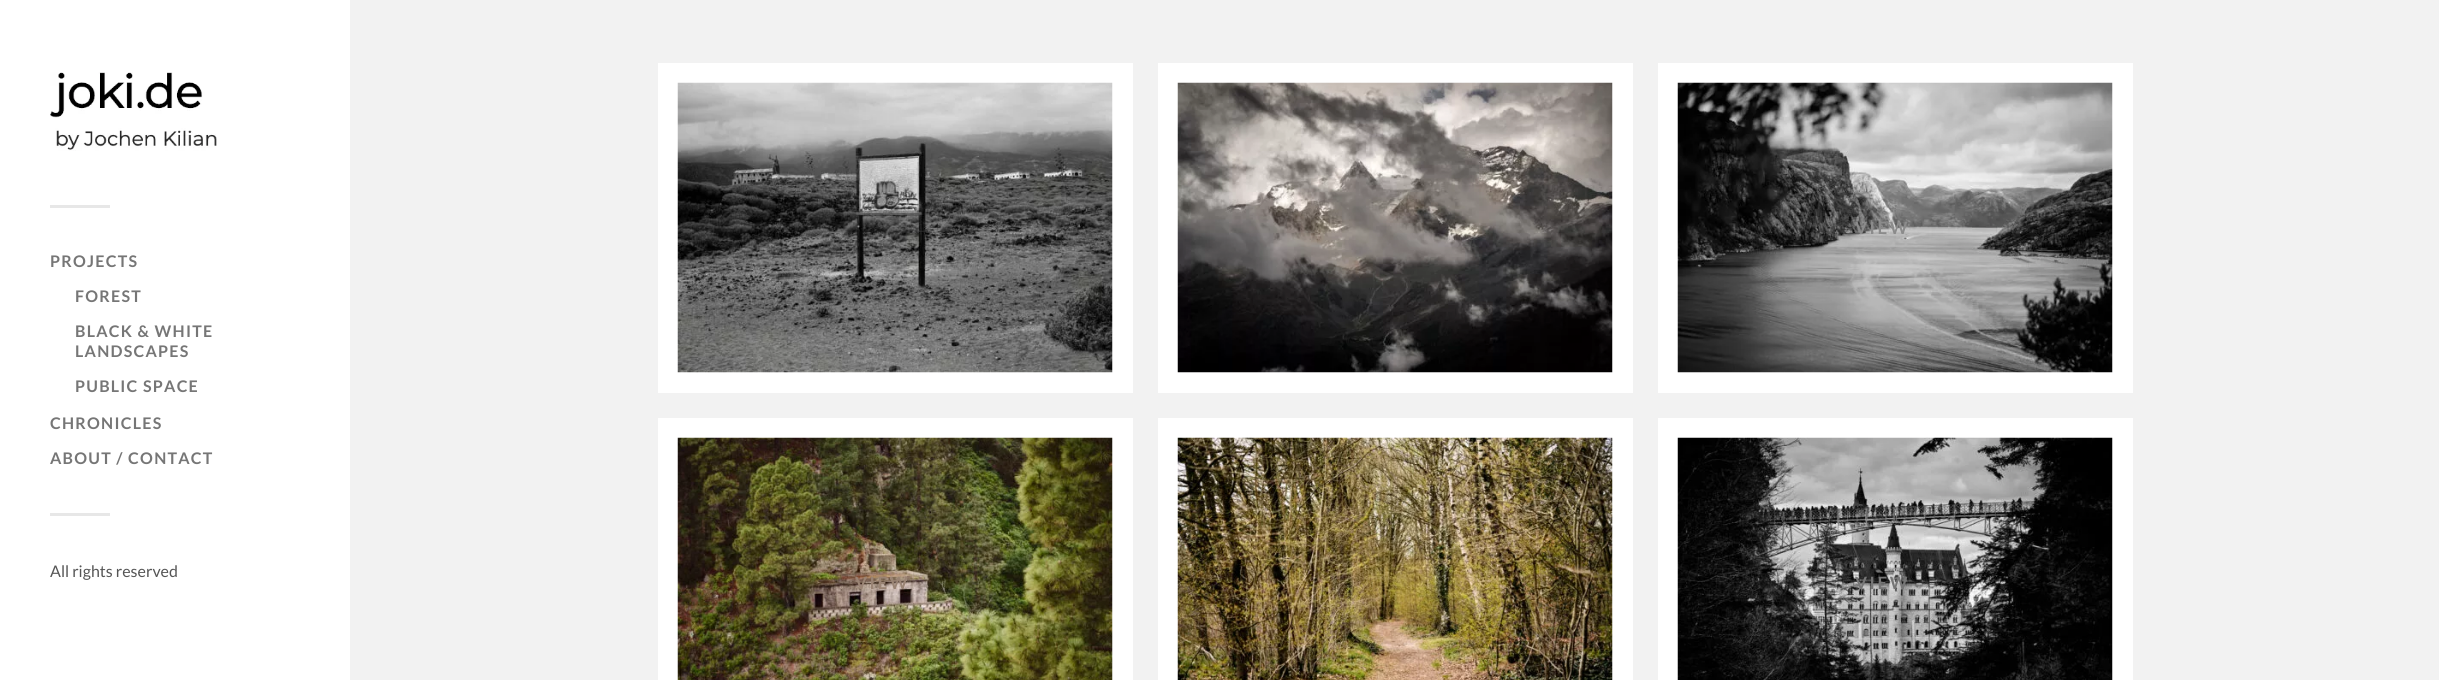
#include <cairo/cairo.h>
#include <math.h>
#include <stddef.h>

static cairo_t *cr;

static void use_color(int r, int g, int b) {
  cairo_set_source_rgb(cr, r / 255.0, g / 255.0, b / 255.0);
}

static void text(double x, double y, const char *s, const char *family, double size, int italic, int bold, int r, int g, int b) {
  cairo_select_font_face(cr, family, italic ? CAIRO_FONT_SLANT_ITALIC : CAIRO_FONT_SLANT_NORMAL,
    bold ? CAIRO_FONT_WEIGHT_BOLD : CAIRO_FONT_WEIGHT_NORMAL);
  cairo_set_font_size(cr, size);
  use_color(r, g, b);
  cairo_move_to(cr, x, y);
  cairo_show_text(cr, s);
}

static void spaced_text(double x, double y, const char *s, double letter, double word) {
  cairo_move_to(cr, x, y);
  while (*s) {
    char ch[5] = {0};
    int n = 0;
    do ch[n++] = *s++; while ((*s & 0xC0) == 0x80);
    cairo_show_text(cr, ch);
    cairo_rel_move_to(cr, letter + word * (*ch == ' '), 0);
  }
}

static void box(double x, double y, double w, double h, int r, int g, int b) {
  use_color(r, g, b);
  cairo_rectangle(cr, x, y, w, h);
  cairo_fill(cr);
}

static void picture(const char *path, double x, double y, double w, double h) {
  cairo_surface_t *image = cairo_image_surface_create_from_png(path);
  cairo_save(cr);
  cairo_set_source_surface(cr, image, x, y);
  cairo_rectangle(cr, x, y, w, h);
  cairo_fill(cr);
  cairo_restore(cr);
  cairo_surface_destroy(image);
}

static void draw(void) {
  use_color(242, 242, 242);
  cairo_paint(cr);
  box(0, 0, 350, 680, 255, 255, 255);
  picture("img_01.png", 50, 72, 167, 79);
  box(50, 205, 60, 3, 231, 231, 231);
  box(50, 513, 60, 3, 231, 231, 231);
  box(658, 63, 475, 330, 255, 255, 255);
  picture("img_02.png", 677, 82, 436, 291);
  box(1158, 63, 475, 330, 255, 255, 255);
  picture("img_03.png", 1177, 82, 436, 291);
  box(1658, 63, 475, 330, 255, 255, 255);
  picture("img_04.png", 1677, 82, 436, 291);
  box(658, 418, 475, 262, 255, 255, 255);
  picture("img_05.png", 677, 437, 436, 243);
  box(1158, 418, 475, 262, 255, 255, 255);
  picture("img_06.png", 1177, 437, 436, 243);
  box(1658, 418, 475, 262, 255, 255, 255);
  picture("img_07.png", 1677, 437, 436, 243);
  cairo_select_font_face(cr, "Lato", CAIRO_FONT_SLANT_NORMAL, CAIRO_FONT_WEIGHT_BOLD);
  cairo_set_font_size(cr, 16);
  use_color(118, 118, 118);
  spaced_text(50, 267, "PROJECTS", 1.25, 0);
  spaced_text(75, 302, "FOREST", 1.25, 0);
  spaced_text(75, 337, "BLACK & WHITE", 1.25, 0);
  spaced_text(75, 357, "LANDSCAPES", 1.25, 0);
  spaced_text(75, 392, "PUBLIC SPACE", 1.25, 0);
  spaced_text(50, 429, "CHRONICLES", 1.25, 0);
  spaced_text(50, 464, "ABOUT / CONTACT", 1.25, 0);
  text(50, 577, "All rights reserved", "Lato", 16, 0, 0, 85, 85, 85);
  cairo_select_font_face(cr, "Liberation Sans", CAIRO_FONT_SLANT_NORMAL, CAIRO_FONT_WEIGHT_BOLD);
  cairo_set_font_size(cr, 17);
  use_color(50, 50, 50);
  spaced_text(915, 234, "→", 2.5, 0);
  cairo_select_font_face(cr, "Lato", CAIRO_FONT_SLANT_NORMAL, CAIRO_FONT_WEIGHT_BOLD);
  use_color(139, 139, 139);
  spaced_text(1855, 234, "VIEW", 2.5, 0);
  use_color(154, 132, 116);
  spaced_text(855, 589, "VIEW", 2.5, 0);
  cairo_select_font_face(cr, "Liberation Sans", CAIRO_FONT_SLANT_NORMAL, CAIRO_FONT_WEIGHT_BOLD);
  use_color(153, 139, 130);
  spaced_text(915, 589, "→", 2.5, 0);
  cairo_select_font_face(cr, "Lato", CAIRO_FONT_SLANT_NORMAL, CAIRO_FONT_WEIGHT_BOLD);
  use_color(118, 118, 118);
  spaced_text(1855, 589, "VIEW", 2.5, 0);
  cairo_select_font_face(cr, "Liberation Sans", CAIRO_FONT_SLANT_NORMAL, CAIRO_FONT_WEIGHT_BOLD);
  use_color(151, 151, 151);
  spaced_text(1915, 589, "→", 2.5, 0);
}

int main(void) {
  cairo_surface_t *surface = cairo_image_surface_create(CAIRO_FORMAT_RGB24, 2439, 680);
  cr = cairo_create(surface);
  cairo_font_options_t *options = cairo_font_options_create();
  cairo_font_options_set_hint_metrics(options, CAIRO_HINT_METRICS_OFF);
  cairo_font_options_set_hint_style(options, CAIRO_HINT_STYLE_NONE);
  cairo_set_font_options(cr, options);
  cairo_set_miter_limit(cr, 4);
  draw();
  cairo_surface_write_to_png(surface, "out.png");
  cairo_font_options_destroy(options);
  cairo_destroy(cr);
  cairo_surface_destroy(surface);
  return 0;
}
